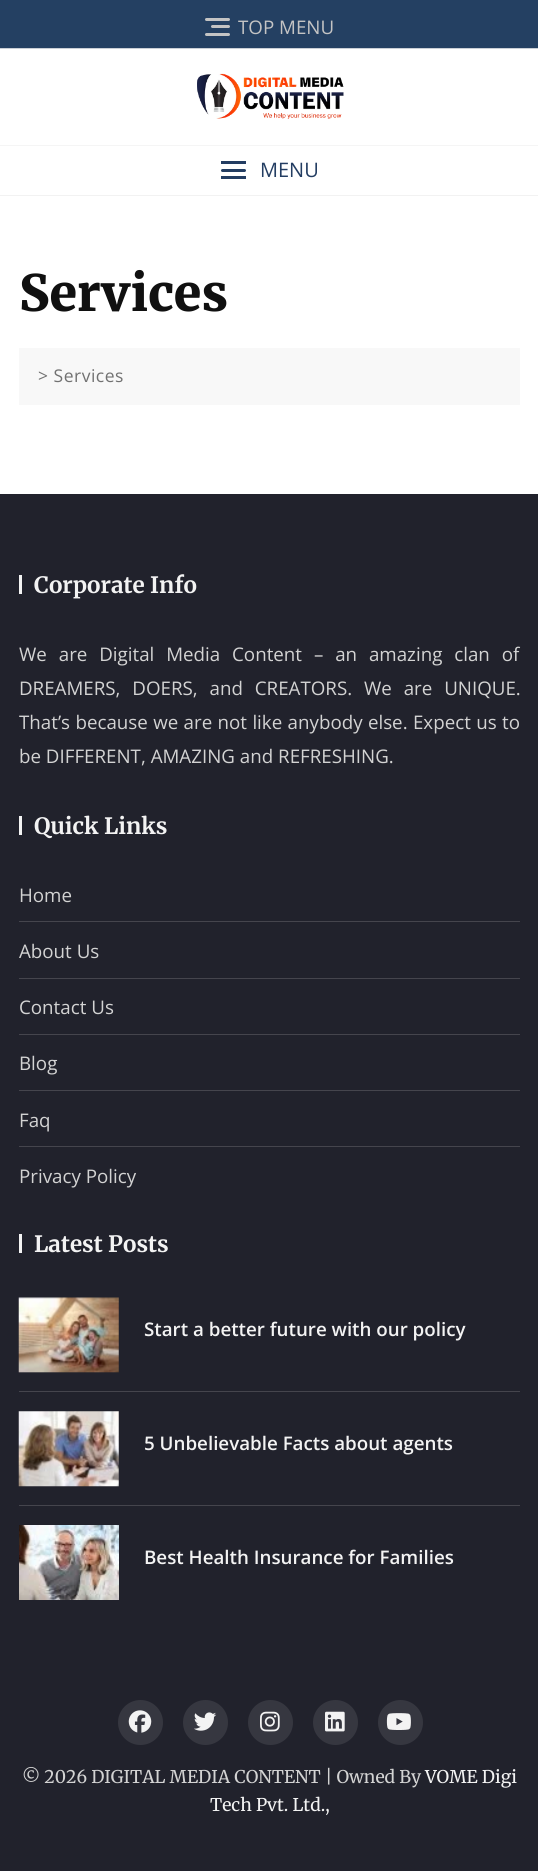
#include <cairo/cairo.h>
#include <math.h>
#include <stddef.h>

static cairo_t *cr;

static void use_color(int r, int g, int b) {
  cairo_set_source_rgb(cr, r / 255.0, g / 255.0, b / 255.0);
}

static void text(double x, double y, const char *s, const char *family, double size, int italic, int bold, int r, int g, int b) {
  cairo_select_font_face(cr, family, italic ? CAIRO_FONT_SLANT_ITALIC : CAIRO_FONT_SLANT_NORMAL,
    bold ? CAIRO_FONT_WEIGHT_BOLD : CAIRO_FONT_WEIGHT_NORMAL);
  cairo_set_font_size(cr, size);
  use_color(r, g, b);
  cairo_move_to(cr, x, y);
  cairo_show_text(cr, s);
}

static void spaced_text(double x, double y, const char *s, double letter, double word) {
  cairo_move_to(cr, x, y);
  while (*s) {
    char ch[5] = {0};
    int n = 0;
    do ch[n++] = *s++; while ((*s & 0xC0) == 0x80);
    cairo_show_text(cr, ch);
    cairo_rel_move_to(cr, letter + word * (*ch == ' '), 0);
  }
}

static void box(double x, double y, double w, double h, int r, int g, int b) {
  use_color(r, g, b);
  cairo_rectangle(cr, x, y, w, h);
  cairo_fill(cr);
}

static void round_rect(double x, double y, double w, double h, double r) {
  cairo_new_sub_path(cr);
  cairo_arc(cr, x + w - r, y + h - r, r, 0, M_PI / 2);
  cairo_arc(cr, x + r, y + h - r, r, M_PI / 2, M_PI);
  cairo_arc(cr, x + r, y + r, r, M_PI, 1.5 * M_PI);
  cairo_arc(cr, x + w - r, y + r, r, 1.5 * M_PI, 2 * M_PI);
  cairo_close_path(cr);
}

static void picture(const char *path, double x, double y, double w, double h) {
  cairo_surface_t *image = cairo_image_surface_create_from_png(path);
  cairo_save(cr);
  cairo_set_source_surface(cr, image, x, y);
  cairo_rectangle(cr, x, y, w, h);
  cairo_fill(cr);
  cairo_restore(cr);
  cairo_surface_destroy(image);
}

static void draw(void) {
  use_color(255, 255, 255);
  cairo_paint(cr);
  box(0, 0, 538, 48, 36, 64, 98);
  box(0, 48, 538, 1, 202, 207, 214);
  use_color(196, 196, 196);
  round_rect(211, 25, 19, 3, 1.5);
  cairo_fill(cr);
  round_rect(205, 18, 25, 3, 1.5);
  cairo_fill(cr);
  round_rect(205, 33, 25, 3, 1.5);
  cairo_fill(cr);
  box(0, 145, 538, 1, 245, 245, 245);
  picture("img_01.png", 197, 73, 147, 46);
  use_color(35, 61, 98);
  round_rect(221, 169, 25, 3, 1.5);
  cairo_fill(cr);
  box(221, 161, 25, 3, 35, 61, 98);
  box(221, 176, 25, 3, 35, 61, 98);
  box(0, 195, 538, 1, 242, 242, 242);
  box(19, 348, 501, 57, 248, 248, 248);
  box(0, 494, 538, 1377, 33, 34, 44);
  box(19, 575, 3, 19, 243, 243, 243);
  box(19, 816, 3, 19, 243, 243, 243);
  box(19, 921, 501, 1, 69, 69, 77);
  box(19, 978, 501, 1, 69, 69, 77);
  box(19, 1034, 501, 1, 69, 69, 77);
  box(19, 1090, 501, 1, 69, 69, 77);
  box(19, 1146, 501, 1, 69, 69, 77);
  box(19, 1234, 3, 19, 243, 243, 243);
  box(19, 1391, 501, 1, 69, 69, 77);
  picture("img_02.png", 18, 1297, 101, 76);
  box(19, 1505, 501, 1, 69, 69, 77);
  picture("img_03.png", 18, 1411, 101, 76);
  picture("img_04.png", 19, 1525, 100, 75);
  use_color(54, 55, 64);
  cairo_arc(cr, 140.5, 1722.5, 22.5, 0, 2 * M_PI);
  cairo_fill(cr);
  picture("img_05.png", 128, 1710, 24, 23);
  cairo_arc(cr, 205.5, 1722.5, 22.5, 0, 2 * M_PI);
  cairo_fill(cr);
  picture("img_06.png", 194, 1712, 23, 19);
  cairo_arc(cr, 270.5, 1722.5, 22.5, 0, 2 * M_PI);
  cairo_fill(cr);
  picture("img_07.png", 260, 1711, 20, 21);
  cairo_arc(cr, 335.5, 1722.5, 22.5, 0, 2 * M_PI);
  cairo_fill(cr);
  picture("img_08.png", 325, 1711, 20, 21);
  cairo_arc(cr, 400.5, 1722.5, 22.5, 0, 2 * M_PI);
  cairo_fill(cr);
  picture("img_09.png", 386, 1713, 25, 17);
  text(238, 34, "TOP MENU", "Open Sans", 18.75, 0, 0, 196, 196, 196);
  text(260, 177, "MENU", "Open Sans", 20, 0, 0, 35, 61, 98);
  text(19, 311, "Services", "Merriweather Black", 50, 0, 0, 16, 16, 16);
  cairo_select_font_face(cr, "Open Sans", CAIRO_FONT_SLANT_NORMAL, CAIRO_FONT_WEIGHT_NORMAL);
  cairo_set_font_size(cr, 17.5);
  use_color(113, 113, 113);
  spaced_text(38, 382, "> Services", 0.5, 0);
  text(34, 593, "Corporate Info", "Merriweather", 22.5, 0, 1, 243, 243, 243);
  cairo_select_font_face(cr, "Open Sans", CAIRO_FONT_SLANT_NORMAL, CAIRO_FONT_WEIGHT_NORMAL);
  cairo_set_font_size(cr, 18.75);
  use_color(211, 211, 211);
  spaced_text(19, 661, "We are Digital Media Content – an amazing clan of", 0, 7);
  spaced_text(19, 695, "DREAMERS, DOERS, and CREATORS. We are UNIQUE.", 0, 7);
  spaced_text(19, 729, "That’s because we are not like anybody else. Expect us to", 0, 0.5);
  text(19, 763, "be DIFFERENT, AMAZING and REFRESHING.", "Open Sans", 18.75, 0, 0, 211, 211, 211);
  text(34, 834, "Quick Links", "Merriweather", 22.5, 0, 1, 243, 243, 243);
  text(19, 902, "Home", "Open Sans", 18.75, 0, 0, 211, 211, 211);
  text(19, 958, "About Us", "Open Sans", 18.75, 0, 0, 211, 211, 211);
  text(19, 1014, "Contact Us", "Open Sans", 18.75, 0, 0, 211, 211, 211);
  text(19, 1070, "Blog", "Open Sans", 18.75, 0, 0, 211, 211, 211);
  text(19, 1127, "Faq", "Open Sans", 18.75, 0, 0, 211, 211, 211);
  text(19, 1183, "Privacy Policy", "Open Sans", 18.75, 0, 0, 211, 211, 211);
  text(34, 1252, "Latest Posts", "Merriweather", 22.5, 0, 1, 243, 243, 243);
  text(144, 1336, "Start a better future with our policy", "Open Sans SemiBold", 18.75, 0, 0, 243, 243, 243);
  text(144, 1450, "5 Unbelievable Facts about agents", "Open Sans SemiBold", 18.75, 0, 0, 243, 243, 243);
  text(144, 1564, "Best Health Insurance for Families", "Open Sans SemiBold", 18.75, 0, 0, 243, 243, 243);
  text(22, 1783, "© 2026 DIGITAL MEDIA CONTENT | Owned By", "Merriweather", 17.5, 0, 0, 211, 211, 211);
  text(425, 1783, "VOME Digi", "Merriweather", 17.5, 0, 0, 243, 243, 243);
  text(210, 1811, "Tech Pvt. Ltd.,", "Merriweather", 17.5, 0, 0, 243, 243, 243);
}

int main(void) {
  cairo_surface_t *surface = cairo_image_surface_create(CAIRO_FORMAT_RGB24, 538, 1871);
  cr = cairo_create(surface);
  cairo_font_options_t *options = cairo_font_options_create();
  cairo_font_options_set_hint_metrics(options, CAIRO_HINT_METRICS_OFF);
  cairo_font_options_set_hint_style(options, CAIRO_HINT_STYLE_NONE);
  cairo_set_font_options(cr, options);
  cairo_set_miter_limit(cr, 4);
  draw();
  cairo_surface_write_to_png(surface, "out.png");
  cairo_font_options_destroy(options);
  cairo_destroy(cr);
  cairo_surface_destroy(surface);
  return 0;
}
